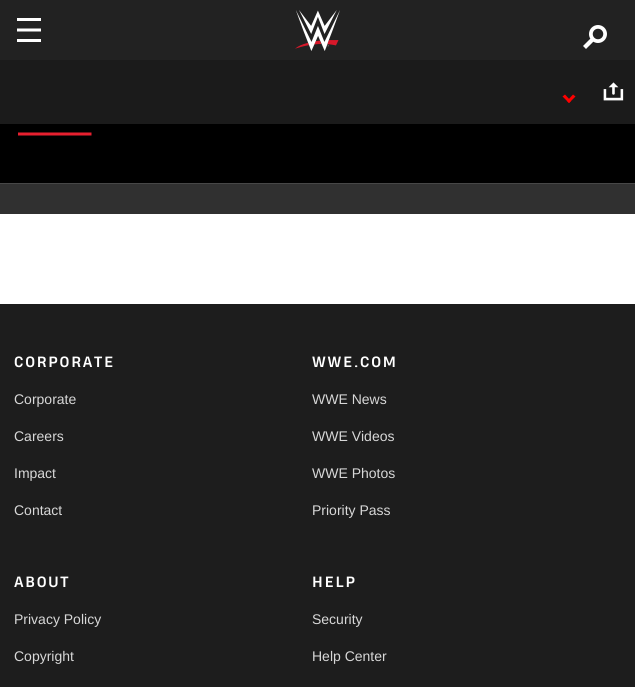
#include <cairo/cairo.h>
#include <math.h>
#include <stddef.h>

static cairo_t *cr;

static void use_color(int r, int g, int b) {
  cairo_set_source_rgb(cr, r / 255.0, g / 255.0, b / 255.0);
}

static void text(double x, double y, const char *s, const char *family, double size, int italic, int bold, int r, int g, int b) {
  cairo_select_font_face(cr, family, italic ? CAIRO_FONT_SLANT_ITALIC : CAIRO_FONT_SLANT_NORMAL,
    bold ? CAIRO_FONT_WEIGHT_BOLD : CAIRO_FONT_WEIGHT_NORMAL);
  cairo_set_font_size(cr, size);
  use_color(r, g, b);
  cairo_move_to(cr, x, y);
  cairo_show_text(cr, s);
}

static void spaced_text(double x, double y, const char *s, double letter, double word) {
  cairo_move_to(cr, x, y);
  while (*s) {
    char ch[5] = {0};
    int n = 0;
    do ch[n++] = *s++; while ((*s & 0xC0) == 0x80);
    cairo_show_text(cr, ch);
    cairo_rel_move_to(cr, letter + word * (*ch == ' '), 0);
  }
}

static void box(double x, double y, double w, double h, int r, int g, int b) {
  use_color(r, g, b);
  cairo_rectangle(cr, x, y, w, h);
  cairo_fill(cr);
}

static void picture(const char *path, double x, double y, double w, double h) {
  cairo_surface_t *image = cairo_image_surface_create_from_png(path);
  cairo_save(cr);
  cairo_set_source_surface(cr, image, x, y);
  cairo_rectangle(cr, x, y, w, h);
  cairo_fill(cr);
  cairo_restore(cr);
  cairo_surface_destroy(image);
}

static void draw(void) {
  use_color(255, 255, 255);
  cairo_paint(cr);
  box(0, 0, 635, 60, 34, 34, 34);
  picture("img_01.png", 17, 18, 24, 24);
  picture("img_02.png", 295, 10, 45, 41);
  picture("img_03.png", 583, 25, 24, 24);
  box(0, 184, 635, 30, 48, 48, 48);
  box(0, 60, 635, 64, 27, 27, 27);
  use_color(255, 0, 0);
  cairo_new_path(cr);
  cairo_move_to(cr, 573, 94.5);
  cairo_line_to(cr, 575.5, 96.5);
  cairo_line_to(cr, 569, 103);
  cairo_line_to(cr, 567, 101);
  cairo_close_path(cr);
  cairo_fill(cr);
  cairo_new_path(cr);
  cairo_move_to(cr, 565, 94.5);
  cairo_line_to(cr, 571, 101);
  cairo_line_to(cr, 569, 103);
  cairo_line_to(cr, 562.5, 96.5);
  cairo_close_path(cr);
  cairo_fill(cr);
  picture("img_04.png", 603, 82, 21, 19);
  box(0, 124, 635, 59, 0, 0, 0);
  box(0, 183, 635, 1, 71, 71, 71);
  cairo_save(cr);
  cairo_rectangle(cr, 18, 131, 90, 5);
  cairo_clip(cr);
  cairo_new_path(cr);
  cairo_move_to(cr, 1.5, 134);
  cairo_line_to(cr, 91.5, 134);
  use_color(231, 32, 47);
  cairo_set_line_width(cr, 3);
  cairo_stroke(cr);
  cairo_restore(cr);
  box(0, 304, 635, 383, 29, 29, 29);
  cairo_select_font_face(cr, "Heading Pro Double", CAIRO_FONT_SLANT_NORMAL, CAIRO_FONT_WEIGHT_BOLD);
  cairo_set_font_size(cr, 14);
  use_color(255, 255, 255);
  spaced_text(14, 367, "CORPORATE", 1.75, 0);
  text(14, 404, "Corporate", "Liberation Sans", 14, 0, 0, 216, 216, 216);
  text(14, 441, "Careers", "Liberation Sans", 14, 0, 0, 216, 216, 216);
  text(14, 478, "Impact", "Liberation Sans", 14, 0, 0, 216, 216, 216);
  text(14, 515, "Contact", "Liberation Sans", 14, 0, 0, 216, 216, 216);
  cairo_select_font_face(cr, "Heading Pro Double", CAIRO_FONT_SLANT_NORMAL, CAIRO_FONT_WEIGHT_BOLD);
  use_color(255, 255, 255);
  spaced_text(312, 367, "WWE.COM", 1.75, 0);
  text(312, 404, "WWE News", "Liberation Sans", 14, 0, 0, 216, 216, 216);
  text(312, 441, "WWE Videos", "Liberation Sans", 14, 0, 0, 216, 216, 216);
  text(312, 478, "WWE Photos", "Liberation Sans", 14, 0, 0, 216, 216, 216);
  text(312, 515, "Priority Pass", "Liberation Sans", 14, 0, 0, 216, 216, 216);
  cairo_select_font_face(cr, "Heading Pro Double", CAIRO_FONT_SLANT_NORMAL, CAIRO_FONT_WEIGHT_BOLD);
  use_color(255, 255, 255);
  spaced_text(14, 587, "ABOUT", 1.75, 0);
  text(14, 624, "Privacy Policy", "Liberation Sans", 14, 0, 0, 216, 216, 216);
  text(14, 661, "Copyright", "Liberation Sans", 14, 0, 0, 216, 216, 216);
  cairo_select_font_face(cr, "Heading Pro Double", CAIRO_FONT_SLANT_NORMAL, CAIRO_FONT_WEIGHT_BOLD);
  use_color(255, 255, 255);
  spaced_text(312, 587, "HELP", 1.75, 0);
  text(312, 624, "Security", "Liberation Sans", 14, 0, 0, 216, 216, 216);
  text(312, 661, "Help Center", "Liberation Sans", 14, 0, 0, 216, 216, 216);
}

int main(void) {
  cairo_surface_t *surface = cairo_image_surface_create(CAIRO_FORMAT_RGB24, 635, 687);
  cr = cairo_create(surface);
  cairo_font_options_t *options = cairo_font_options_create();
  cairo_font_options_set_hint_metrics(options, CAIRO_HINT_METRICS_OFF);
  cairo_font_options_set_hint_style(options, CAIRO_HINT_STYLE_NONE);
  cairo_set_font_options(cr, options);
  cairo_set_miter_limit(cr, 4);
  draw();
  cairo_surface_write_to_png(surface, "out.png");
  cairo_font_options_destroy(options);
  cairo_destroy(cr);
  cairo_surface_destroy(surface);
  return 0;
}
